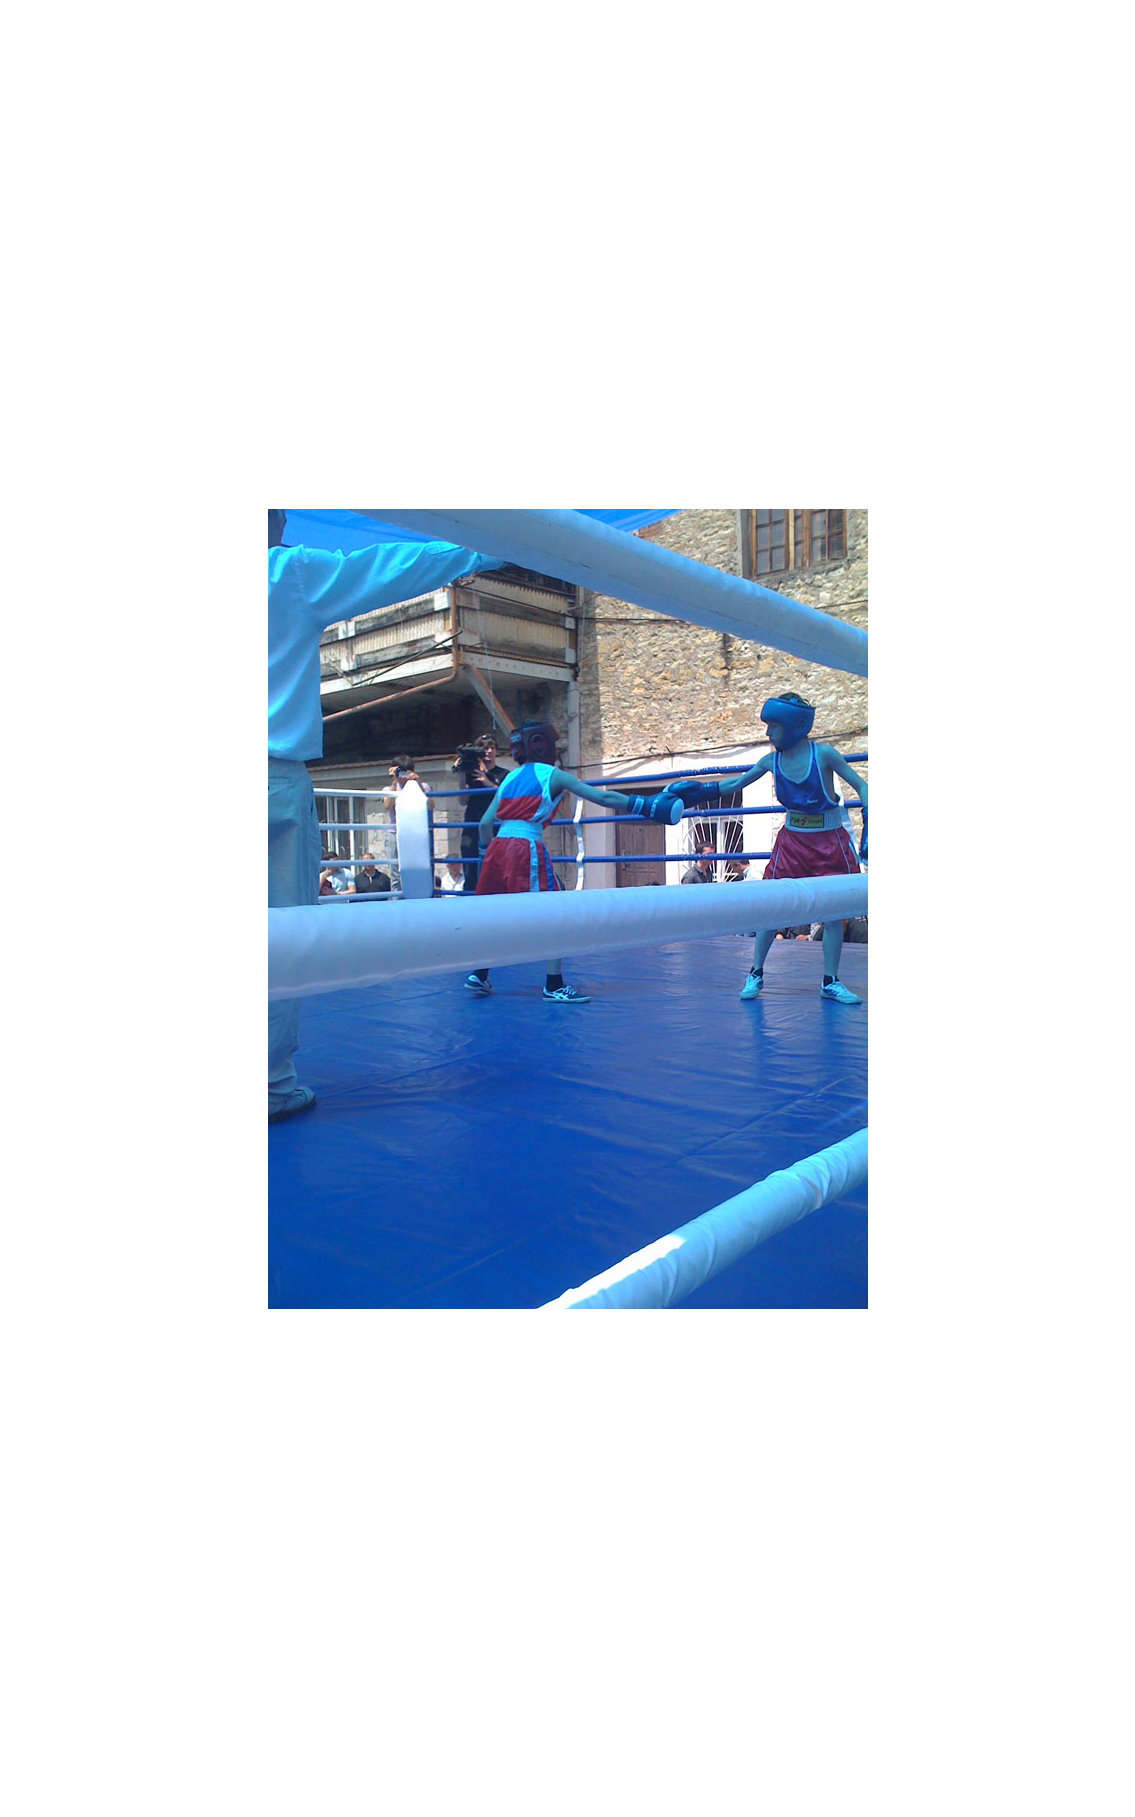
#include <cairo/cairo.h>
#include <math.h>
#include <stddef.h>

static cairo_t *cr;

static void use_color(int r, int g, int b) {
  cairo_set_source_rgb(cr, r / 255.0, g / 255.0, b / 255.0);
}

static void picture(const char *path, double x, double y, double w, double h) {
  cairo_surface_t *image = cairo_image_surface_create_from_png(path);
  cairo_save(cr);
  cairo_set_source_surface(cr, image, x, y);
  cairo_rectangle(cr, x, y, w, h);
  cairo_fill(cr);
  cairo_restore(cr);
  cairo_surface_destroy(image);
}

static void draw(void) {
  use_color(255, 255, 255);
  cairo_paint(cr);
  picture("img_01.png", 268, 509, 600, 800);
}

int main(void) {
  cairo_surface_t *surface = cairo_image_surface_create(CAIRO_FORMAT_RGB24, 1135, 1817);
  cr = cairo_create(surface);
  cairo_font_options_t *options = cairo_font_options_create();
  cairo_font_options_set_hint_metrics(options, CAIRO_HINT_METRICS_OFF);
  cairo_font_options_set_hint_style(options, CAIRO_HINT_STYLE_NONE);
  cairo_set_font_options(cr, options);
  cairo_set_miter_limit(cr, 4);
  draw();
  cairo_surface_write_to_png(surface, "out.png");
  cairo_font_options_destroy(options);
  cairo_destroy(cr);
  cairo_surface_destroy(surface);
  return 0;
}
